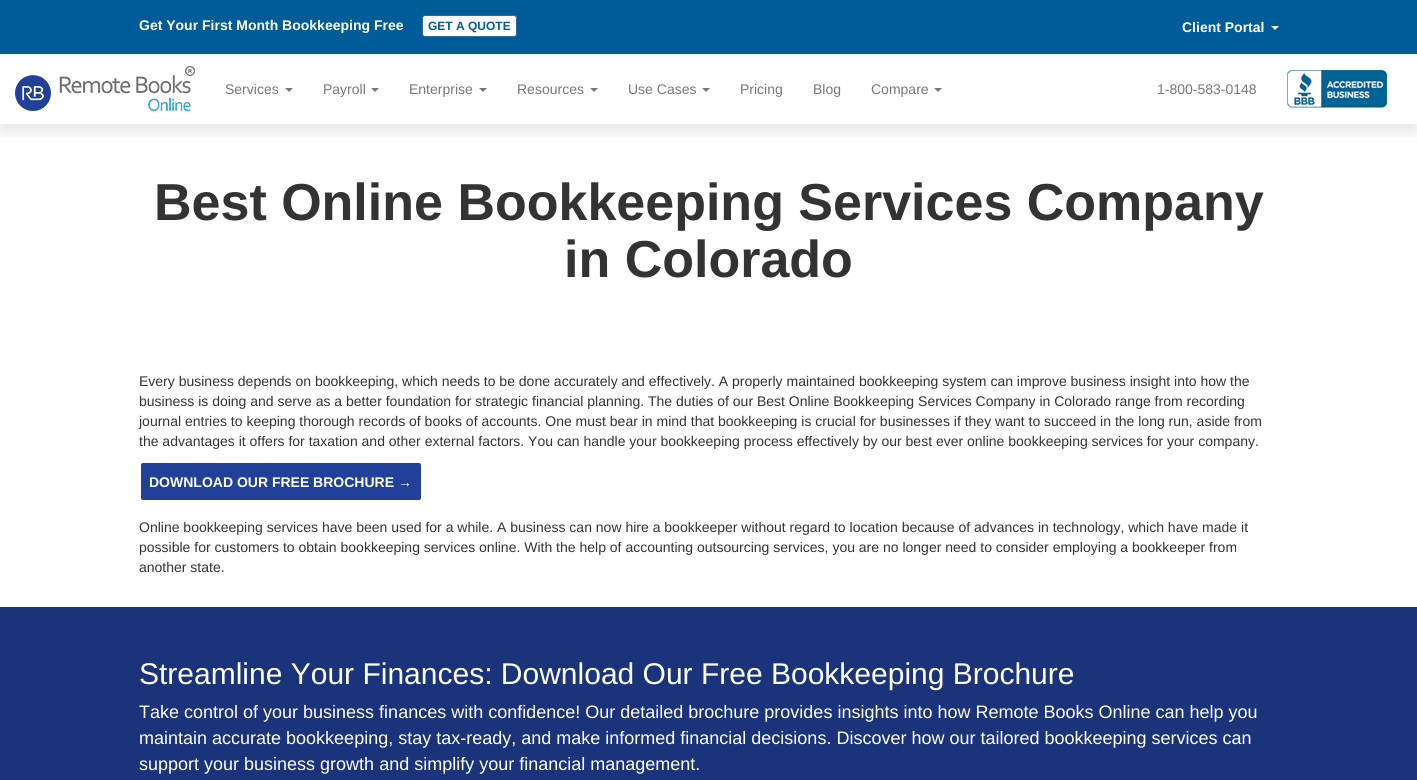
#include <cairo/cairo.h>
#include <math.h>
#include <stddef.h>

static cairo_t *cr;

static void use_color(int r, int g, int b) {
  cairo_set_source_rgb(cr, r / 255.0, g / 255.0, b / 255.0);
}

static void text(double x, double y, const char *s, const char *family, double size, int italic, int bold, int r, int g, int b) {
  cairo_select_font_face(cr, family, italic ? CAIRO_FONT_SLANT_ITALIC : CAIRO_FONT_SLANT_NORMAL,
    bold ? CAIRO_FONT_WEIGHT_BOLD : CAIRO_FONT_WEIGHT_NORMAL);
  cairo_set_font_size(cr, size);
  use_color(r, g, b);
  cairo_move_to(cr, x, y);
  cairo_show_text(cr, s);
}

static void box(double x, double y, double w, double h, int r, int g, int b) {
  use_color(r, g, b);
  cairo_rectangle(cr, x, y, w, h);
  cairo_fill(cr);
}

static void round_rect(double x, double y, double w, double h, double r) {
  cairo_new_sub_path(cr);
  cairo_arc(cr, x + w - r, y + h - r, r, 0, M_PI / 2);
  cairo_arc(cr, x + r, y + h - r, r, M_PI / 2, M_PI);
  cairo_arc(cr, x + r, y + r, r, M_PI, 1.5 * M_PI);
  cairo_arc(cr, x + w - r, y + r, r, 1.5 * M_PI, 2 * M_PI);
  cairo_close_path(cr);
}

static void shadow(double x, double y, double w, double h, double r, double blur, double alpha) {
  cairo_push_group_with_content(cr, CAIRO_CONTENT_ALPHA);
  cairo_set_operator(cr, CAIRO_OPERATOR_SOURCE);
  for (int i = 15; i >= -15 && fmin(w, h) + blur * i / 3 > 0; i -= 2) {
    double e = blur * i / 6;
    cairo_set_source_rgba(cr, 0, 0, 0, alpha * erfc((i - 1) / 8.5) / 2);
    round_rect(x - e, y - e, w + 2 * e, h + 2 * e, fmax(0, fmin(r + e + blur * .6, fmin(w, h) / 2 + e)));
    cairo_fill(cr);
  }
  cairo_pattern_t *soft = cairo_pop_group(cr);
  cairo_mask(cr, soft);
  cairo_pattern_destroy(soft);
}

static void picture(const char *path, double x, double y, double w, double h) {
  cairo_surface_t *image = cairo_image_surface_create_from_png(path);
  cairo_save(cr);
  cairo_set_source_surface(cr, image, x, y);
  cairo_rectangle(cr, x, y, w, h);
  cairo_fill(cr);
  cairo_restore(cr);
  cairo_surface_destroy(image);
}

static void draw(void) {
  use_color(255, 255, 255);
  cairo_paint(cr);
  cairo_save(cr);
  cairo_rectangle(cr, 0, 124, 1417, 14);
  cairo_clip(cr);
  use_color(0, 0, 0);
  shadow(0, 8, 1417, 124, 0, 7.5, 0.1);
  cairo_restore(cr);
  box(0, 0, 1417, 54, 0, 91, 153);
  use_color(255, 255, 255);
  round_rect(422.5, 15.5, 94, 21, 2.5);
  cairo_fill_preserve(cr);
  use_color(46, 109, 164);
  cairo_set_line_width(cr, 1);
  cairo_stroke(cr);
  use_color(255, 255, 255);
  cairo_new_path(cr);
  cairo_move_to(cr, 1271, 26);
  cairo_line_to(cr, 1279, 26);
  cairo_line_to(cr, 1275, 30);
  cairo_close_path(cr);
  cairo_fill(cr);
  picture("img_01.png", 15, 66, 180, 45);
  use_color(119, 119, 119);
  cairo_new_path(cr);
  cairo_move_to(cr, 285, 88);
  cairo_line_to(cr, 293, 88);
  cairo_line_to(cr, 289, 92);
  cairo_close_path(cr);
  cairo_fill(cr);
  cairo_new_path(cr);
  cairo_move_to(cr, 371, 88);
  cairo_line_to(cr, 379, 88);
  cairo_line_to(cr, 375, 92);
  cairo_close_path(cr);
  cairo_fill(cr);
  cairo_new_path(cr);
  cairo_move_to(cr, 479, 88);
  cairo_line_to(cr, 487, 88);
  cairo_line_to(cr, 483, 92);
  cairo_close_path(cr);
  cairo_fill(cr);
  cairo_new_path(cr);
  cairo_move_to(cr, 590, 88);
  cairo_line_to(cr, 598, 88);
  cairo_line_to(cr, 594, 92);
  cairo_close_path(cr);
  cairo_fill(cr);
  cairo_new_path(cr);
  cairo_move_to(cr, 702, 88);
  cairo_line_to(cr, 710, 88);
  cairo_line_to(cr, 706, 92);
  cairo_close_path(cr);
  cairo_fill(cr);
  cairo_new_path(cr);
  cairo_move_to(cr, 934, 88);
  cairo_line_to(cr, 942, 88);
  cairo_line_to(cr, 938, 92);
  cairo_close_path(cr);
  cairo_fill(cr);
  picture("img_02.png", 1287, 70, 100, 38);
  use_color(33, 64, 154);
  round_rect(140, 462, 282, 39, 3);
  cairo_fill_preserve(cr);
  use_color(255, 255, 255);
  cairo_set_line_width(cr, 2);
  cairo_stroke(cr);
  box(0, 607, 1417, 173, 26, 51, 123);
  text(139, 30, "Get Your First Month Bookkeeping Free", "Liberation Sans", 14, 0, 1, 255, 255, 255);
  text(428, 30, "GET A QUOTE", "Liberation Sans", 12, 0, 1, 0, 91, 153);
  text(1182, 32, "Client Portal", "Liberation Sans", 14, 0, 1, 255, 255, 255);
  text(225, 94, "Services", "Liberation Sans", 14, 0, 0, 119, 119, 119);
  text(323, 94, "Payroll", "Liberation Sans", 14, 0, 0, 119, 119, 119);
  text(409, 94, "Enterprise", "Liberation Sans", 14, 0, 0, 119, 119, 119);
  text(517, 94, "Resources", "Liberation Sans", 14, 0, 0, 119, 119, 119);
  text(628, 94, "Use Cases", "Liberation Sans", 14, 0, 0, 119, 119, 119);
  text(740, 94, "Pricing", "Liberation Sans", 14, 0, 0, 119, 119, 119);
  text(813, 94, "Blog", "Liberation Sans", 14, 0, 0, 119, 119, 119);
  text(871, 94, "Compare", "Liberation Sans", 14, 0, 0, 119, 119, 119);
  text(1157, 94, "1-800-583-0148", "Liberation Sans", 14, 0, 0, 119, 119, 119);
  text(154, 220, "Best Online Bookkeeping Services Company", "Liberation Sans", 52, 0, 1, 51, 51, 51);
  text(564, 277, "in Colorado", "Liberation Sans", 52, 0, 1, 51, 51, 51);
  text(139, 386, "Every business depends on bookkeeping, which needs to be done accurately and effectively. A properly maintained bookkeeping system can improve business insight into how the", "Liberation Sans", 14, 0, 0, 51, 51, 51);
  text(139, 406, "business is doing and serve as a better foundation for strategic financial planning. The duties of our Best Online Bookkeeping Services Company in Colorado range from recording", "Liberation Sans", 14, 0, 0, 51, 51, 51);
  text(139, 426, "journal entries to keeping thorough records of books of accounts. One must bear in mind that bookkeeping is crucial for businesses if they want to succeed in the long run, aside from", "Liberation Sans", 14, 0, 0, 51, 51, 51);
  text(139, 446, "the advantages it offers for taxation and other external factors. You can handle your bookkeeping process effectively by our best ever online bookkeeping services for your company.", "Liberation Sans", 14, 0, 0, 51, 51, 51);
  text(149, 487, "DOWNLOAD OUR FREE BROCHURE →", "Liberation Sans", 14, 0, 1, 255, 255, 255);
  text(139, 532, "Online bookkeeping services have been used for a while. A business can now hire a bookkeeper without regard to location because of advances in technology, which have made it", "Liberation Sans", 14, 0, 0, 51, 51, 51);
  text(139, 552, "possible for customers to obtain bookkeeping services online. With the help of accounting outsourcing services, you are no longer need to consider employing a bookkeeper from", "Liberation Sans", 14, 0, 0, 51, 51, 51);
  text(139, 572, "another state.", "Liberation Sans", 14, 0, 0, 51, 51, 51);
  text(139, 684, "Streamline Your Finances: Download Our Free Bookkeeping Brochure", "Liberation Sans", 30, 0, 0, 255, 255, 255);
  text(139, 718, "Take control of your business finances with confidence! Our detailed brochure provides insights into how Remote Books Online can help you", "Liberation Sans", 18, 0, 0, 255, 255, 255);
  text(139, 744, "maintain accurate bookkeeping, stay tax-ready, and make informed financial decisions. Discover how our tailored bookkeeping services can", "Liberation Sans", 18, 0, 0, 255, 255, 255);
  text(139, 770, "support your business growth and simplify your financial management.", "Liberation Sans", 18, 0, 0, 255, 255, 255);
}

int main(void) {
  cairo_surface_t *surface = cairo_image_surface_create(CAIRO_FORMAT_RGB24, 1417, 780);
  cr = cairo_create(surface);
  cairo_font_options_t *options = cairo_font_options_create();
  cairo_font_options_set_hint_metrics(options, CAIRO_HINT_METRICS_OFF);
  cairo_font_options_set_hint_style(options, CAIRO_HINT_STYLE_NONE);
  cairo_set_font_options(cr, options);
  cairo_set_miter_limit(cr, 4);
  draw();
  cairo_surface_write_to_png(surface, "out.png");
  cairo_font_options_destroy(options);
  cairo_destroy(cr);
  cairo_surface_destroy(surface);
  return 0;
}
